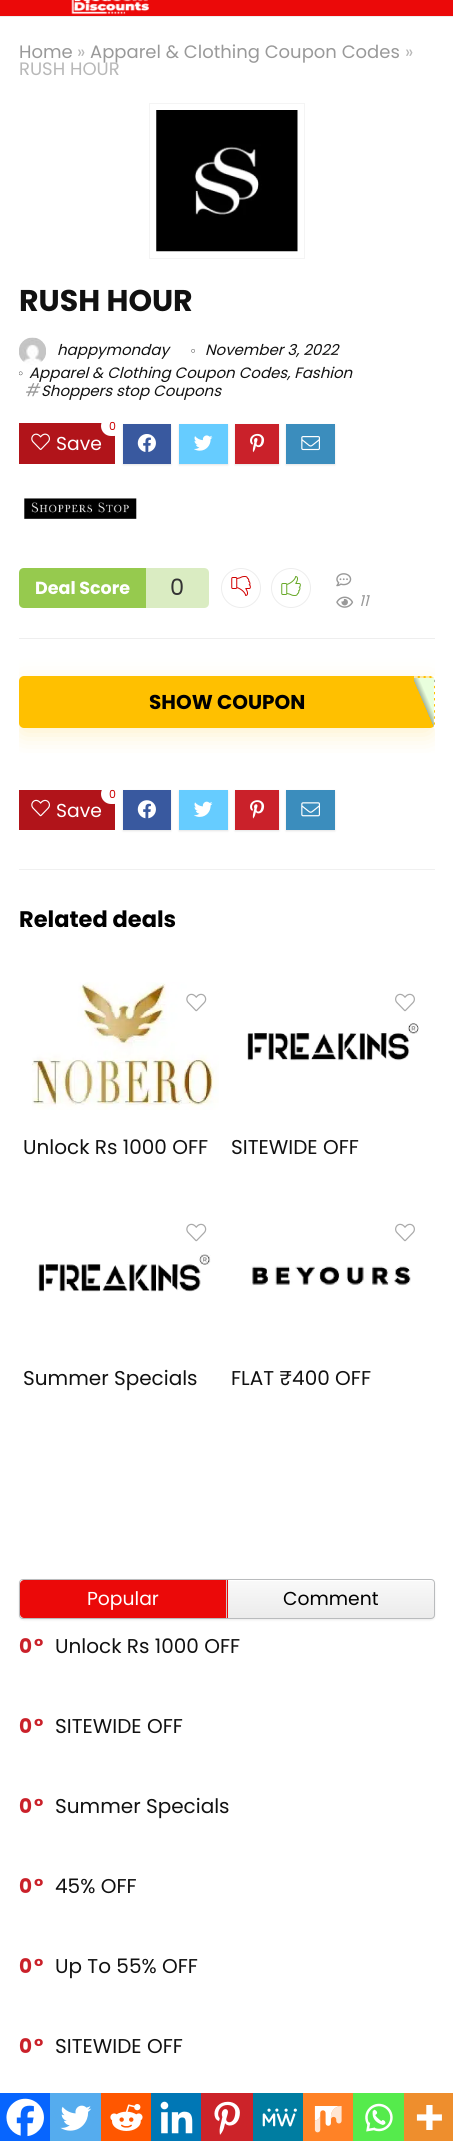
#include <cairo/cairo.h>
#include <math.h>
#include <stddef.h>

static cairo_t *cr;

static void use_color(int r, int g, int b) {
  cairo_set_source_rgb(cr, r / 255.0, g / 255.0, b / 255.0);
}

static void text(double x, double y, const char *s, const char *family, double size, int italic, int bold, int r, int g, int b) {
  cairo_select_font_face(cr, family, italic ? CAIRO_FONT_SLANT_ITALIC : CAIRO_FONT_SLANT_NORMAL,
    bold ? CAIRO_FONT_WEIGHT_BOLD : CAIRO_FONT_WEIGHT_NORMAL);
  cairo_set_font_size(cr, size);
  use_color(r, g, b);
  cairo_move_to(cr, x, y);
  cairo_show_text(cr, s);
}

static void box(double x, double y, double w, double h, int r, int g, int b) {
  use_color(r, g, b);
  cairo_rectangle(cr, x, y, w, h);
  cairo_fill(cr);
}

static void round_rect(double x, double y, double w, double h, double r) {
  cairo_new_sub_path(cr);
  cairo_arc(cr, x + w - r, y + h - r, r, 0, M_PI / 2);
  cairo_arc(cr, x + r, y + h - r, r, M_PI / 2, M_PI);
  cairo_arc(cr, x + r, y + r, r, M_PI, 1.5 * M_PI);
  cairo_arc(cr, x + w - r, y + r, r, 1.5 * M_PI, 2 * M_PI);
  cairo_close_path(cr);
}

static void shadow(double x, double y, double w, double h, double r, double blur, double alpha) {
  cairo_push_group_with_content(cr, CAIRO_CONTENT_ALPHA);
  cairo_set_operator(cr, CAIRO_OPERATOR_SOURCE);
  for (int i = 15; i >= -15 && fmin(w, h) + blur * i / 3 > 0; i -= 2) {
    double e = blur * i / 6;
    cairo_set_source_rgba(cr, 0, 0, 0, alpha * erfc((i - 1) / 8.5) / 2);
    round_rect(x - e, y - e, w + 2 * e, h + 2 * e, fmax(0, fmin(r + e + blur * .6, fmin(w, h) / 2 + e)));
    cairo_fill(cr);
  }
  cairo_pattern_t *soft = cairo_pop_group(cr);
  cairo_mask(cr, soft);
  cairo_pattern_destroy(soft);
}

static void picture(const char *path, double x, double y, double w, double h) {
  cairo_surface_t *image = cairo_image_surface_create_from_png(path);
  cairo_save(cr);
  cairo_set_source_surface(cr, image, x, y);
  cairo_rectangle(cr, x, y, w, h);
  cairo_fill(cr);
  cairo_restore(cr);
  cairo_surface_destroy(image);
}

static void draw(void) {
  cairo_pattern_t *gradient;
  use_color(255, 255, 255);
  cairo_paint(cr);
  box(0, 16, 453, 1, 238, 238, 238);
  box(0, 0, 453, 16, 235, 9, 9);
  picture("img_01.png", 71, 0, 78, 15);
  cairo_rectangle(cr, 149.5, 103.5, 155, 155);
  use_color(244, 244, 244);
  cairo_set_line_width(cr, 1);
  cairo_stroke(cr);
  picture("img_02.png", 156, 110, 142, 142);
  picture("img_03.png", 19, 337, 27, 28);
  picture("img_04.png", 191, 349, 4, 4);
  picture("img_05.png", 19, 371, 4, 5);
  picture("img_06.png", 26, 383, 15, 14);
  box(19, 423, 96, 41, 177, 20, 26);
  cairo_save(cr);
  cairo_rectangle(cr, 19, 419, 391, 52);
  cairo_clip(cr);
  use_color(255, 255, 255);
  round_rect(101, 416, 23, 20, 10);
  cairo_fill(cr);
  cairo_restore(cr);
  picture("img_07.png", 31, 433, 19, 17);
  use_color(228, 228, 228);
  shadow(123, 425, 48, 40, 0, 1, 1);
  box(123, 424, 48, 40, 57, 89, 159);
  picture("img_08.png", 137, 434, 19, 18);
  use_color(228, 228, 228);
  shadow(179, 425, 49, 40, 0, 1, 1);
  box(179, 424, 49, 40, 102, 204, 255);
  picture("img_09.png", 194, 435, 19, 16);
  use_color(228, 228, 228);
  shadow(235, 425, 44, 40, 0, 1, 1);
  box(235, 424, 44, 40, 202, 33, 42);
  picture("img_10.png", 250, 433, 15, 20);
  use_color(228, 228, 228);
  shadow(286, 425, 49, 40, 0, 1, 1);
  box(286, 424, 49, 40, 59, 141, 189);
  picture("img_11.png", 301, 436, 19, 15);
  picture("img_12.png", 24, 498, 113, 21);
  use_color(150, 202, 78);
  cairo_new_path(cr);
  cairo_move_to(cr, 24, 568);
  cairo_line_to(cr, 146, 568);
  cairo_line_to(cr, 146, 608);
  cairo_line_to(cr, 24, 608);
  cairo_curve_to(cr, 21, 608, 19, 606, 19, 603);
  cairo_line_to(cr, 19, 573);
  cairo_curve_to(cr, 19, 570, 21, 568, 24, 568);
  cairo_close_path(cr);
  cairo_fill(cr);
  use_color(218, 236, 194);
  cairo_new_path(cr);
  cairo_move_to(cr, 146, 568);
  cairo_line_to(cr, 204, 568);
  cairo_curve_to(cr, 207, 568, 209, 570, 209, 573);
  cairo_line_to(cr, 209, 603);
  cairo_curve_to(cr, 209, 606, 207, 608, 204, 608);
  cairo_line_to(cr, 146, 608);
  cairo_close_path(cr);
  cairo_fill(cr);
  cairo_arc(cr, 241, 588, 19.5, 0, 2 * M_PI);
  use_color(237, 237, 237);
  cairo_stroke(cr);
  picture("img_13.png", 231, 576, 20, 20);
  cairo_arc(cr, 291, 588, 19.5, 0, 2 * M_PI);
  cairo_stroke(cr);
  picture("img_14.png", 281, 576, 20, 20);
  picture("img_15.png", 336, 573, 16, 14);
  picture("img_16.png", 336, 596, 18, 12);
  box(19, 638, 416, 1, 238, 238, 238);
  cairo_save(cr);
  cairo_rectangle(cr, 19, 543, 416, 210);
  cairo_clip(cr);
  use_color(255, 192, 0);
  shadow(18, 684, 416, 51, 5, 12, 0.2);
  cairo_restore(cr);
  use_color(255, 192, 0);
  round_rect(19, 676, 416, 52, 5);
  cairo_fill(cr);
  gradient = cairo_pattern_create_linear(406, 711, 441, 696);
  cairo_pattern_add_color_stop_rgba(gradient, 0, 0, 0, 0, 0);
  cairo_pattern_add_color_stop_rgba(gradient, 0.5, 0.651, 0.718, 0.616, 0);
  cairo_pattern_add_color_stop_rgba(gradient, 0.51, 0.651, 0.718, 0.616, 1);
  cairo_pattern_add_color_stop_rgba(gradient, 0.66, 0.914, 1, 0.867, 1);
  cairo_set_source(cr, gradient);
  cairo_pattern_destroy(gradient);
  cairo_rectangle(cr, 414, 678, 20, 49);
  cairo_fill(cr);
  gradient = cairo_pattern_create_linear(426, 711, 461, 696);
  cairo_pattern_add_color_stop_rgba(gradient, 0, 0, 0, 0, 0);
  cairo_pattern_add_color_stop_rgba(gradient, 0.5, 0.651, 0.718, 0.616, 0);
  cairo_pattern_add_color_stop_rgba(gradient, 0.51, 0.651, 0.718, 0.616, 1);
  cairo_pattern_add_color_stop_rgba(gradient, 0.66, 0.914, 1, 0.867, 1);
  cairo_set_source(cr, gradient);
  cairo_pattern_destroy(gradient);
  cairo_rectangle(cr, 434, 678, 1, 4);
  cairo_fill(cr);
  cairo_new_path(cr);
  cairo_move_to(cr, 414, 677);
  cairo_line_to(cr, 435, 677);
  use_color(255, 255, 255);
  cairo_set_line_width(cr, 1.2);
  cairo_set_dash(cr, (double[]){3.75, 2.09}, 2, 0);
  cairo_stroke(cr);
  cairo_save(cr);
  cairo_rectangle(cr, 19, 543, 416, 210);
  cairo_clip(cr);
  cairo_new_path(cr);
  cairo_move_to(cr, 434.5, 676);
  cairo_line_to(cr, 434.5, 729);
  cairo_set_dash(cr, (double[]){3.75, 2.35}, 2, 0);
  cairo_stroke(cr);
  cairo_restore(cr);
  box(0, 2093, 50, 48, 7, 101, 254);
  picture("img_17.png", 6, 2098, 38, 39);
  box(50, 2093, 51, 48, 85, 172, 238);
  picture("img_18.png", 60, 2105, 32, 26);
  box(101, 2093, 50, 48, 255, 87, 0);
  picture("img_19.png", 110, 2104, 33, 27);
  box(151, 2093, 50, 48, 0, 119, 181);
  picture("img_20.png", 160, 2101, 33, 33);
  box(201, 2093, 52, 48, 204, 35, 41);
  picture("img_21.png", 214, 2101, 26, 34);
  box(253, 2093, 50, 48, 0, 125, 161);
  picture("img_22.png", 262, 2108, 35, 19);
  box(303, 2093, 50, 48, 255, 130, 38);
  picture("img_23.png", 314, 2106, 28, 27);
  box(353, 2093, 51, 48, 85, 235, 76);
  picture("img_24.png", 365, 2103, 28, 29);
  box(404, 2093, 49, 48, 238, 142, 45);
  picture("img_25.png", 416, 2105, 26, 25);
  box(19, 790, 96, 40, 177, 20, 26);
  use_color(255, 255, 255);
  round_rect(101, 784, 23, 20, 10);
  cairo_fill(cr);
  picture("img_26.png", 31, 799, 19, 18);
  use_color(228, 228, 228);
  shadow(123, 791, 48, 40, 0, 1, 1);
  box(123, 790, 48, 40, 57, 89, 159);
  picture("img_27.png", 137, 800, 19, 19);
  use_color(228, 228, 228);
  shadow(179, 791, 49, 40, 0, 1, 1);
  box(179, 790, 49, 40, 102, 204, 255);
  picture("img_28.png", 194, 801, 19, 16);
  use_color(228, 228, 228);
  shadow(235, 791, 44, 40, 0, 1, 1);
  box(235, 790, 44, 40, 202, 33, 42);
  picture("img_29.png", 250, 800, 15, 19);
  use_color(228, 228, 228);
  shadow(286, 791, 49, 40, 0, 1, 1);
  box(286, 790, 49, 40, 59, 141, 189);
  picture("img_30.png", 301, 802, 19, 15);
  box(19, 869, 416, 1, 240, 240, 240);
  picture("img_31.png", 32, 982, 187, 128);
  picture("img_32.png", 186, 993, 21, 19);
  picture("img_33.png", 395, 993, 20, 19);
  picture("img_34.png", 247, 1023, 172, 38);
  picture("img_32.png", 186, 1223, 21, 19);
  picture("img_35.png", 38, 1254, 173, 38);
  picture("img_33.png", 395, 1223, 20, 19);
  picture("img_36.png", 250, 1265, 161, 21);
  use_color(0, 0, 0);
  shadow(19, 1580, 416, 40, 4, 1, 0.08);
  cairo_save(cr);
  round_rect(19, 1579, 416, 40, 4);
  cairo_clip(cr);
  gradient = cairo_pattern_create_linear(227, 1580, 227, 1618);
  cairo_pattern_add_color_stop_rgba(gradient, 0.03, 1, 1, 1, 1);
  cairo_pattern_add_color_stop_rgba(gradient, 0.03, 0.976, 0.976, 0.976, 1);
  cairo_pattern_add_color_stop_rgba(gradient, 1, 0.922, 0.922, 0.922, 1);
  cairo_set_source(cr, gradient);
  cairo_pattern_destroy(gradient);
  cairo_rectangle(cr, 19, 1580, 416, 38);
  cairo_fill(cr);
  cairo_restore(cr);
  cairo_set_source_rgba(cr, 1, 1, 1, 0.7);
  cairo_new_path(cr);
  cairo_move_to(cr, 22, 1581);
  cairo_line_to(cr, 431, 1581);
  cairo_curve_to(cr, 433, 1581, 434, 1582, 434, 1584);
  cairo_curve_to(cr, 434, 1582, 434, 1580, 432, 1580);
  cairo_line_to(cr, 22, 1580);
  cairo_line_to(cr, 20, 1581);
  cairo_line_to(cr, 20, 1584);
  cairo_curve_to(cr, 20, 1582, 21, 1581, 22, 1581);
  cairo_close_path(cr);
  cairo_fill(cr);
  round_rect(19.5, 1579.5, 415, 39, 3.5);
  use_color(185, 187, 189);
  cairo_set_line_width(cr, 1);
  cairo_set_dash(cr, NULL, 0, 0);
  cairo_stroke(cr);
  use_color(235, 9, 9);
  cairo_new_path(cr);
  cairo_move_to(cr, 24, 1580);
  cairo_line_to(cr, 228, 1580);
  cairo_line_to(cr, 228, 1618);
  cairo_line_to(cr, 24, 1618);
  cairo_curve_to(cr, 22, 1618, 20, 1616, 20, 1614);
  cairo_line_to(cr, 20, 1584);
  cairo_curve_to(cr, 20, 1582, 22, 1580, 24, 1580);
  cairo_close_path(cr);
  cairo_fill(cr);
  box(226, 1580, 1, 38, 204, 204, 204);
  text(19, 58, "Home", "Poppins", 18, 0, 0, 153, 153, 153);
  text(77, 58, "»", "Poppins", 18, 0, 0, 184, 184, 184);
  text(90, 58, "Apparel & Clothing Coupon Codes", "Poppins", 18, 0, 0, 153, 153, 153);
  text(405, 58, "»", "Poppins", 18, 0, 0, 184, 184, 184);
  text(19, 75, "RUSH HOUR", "Poppins", 18, 0, 0, 184, 184, 184);
  text(19, 311, "RUSH HOUR", "Poppins", 30, 0, 1, 17, 17, 17);
  text(57, 355, "happymonday", "Poppins", 15, 1, 0, 17, 17, 17);
  text(205, 355, "November 3, 2022", "Poppins", 15, 1, 0, 17, 17, 17);
  text(29, 378, "Apparel & Clothing Coupon Codes, Fashion", "Poppins", 15, 1, 0, 17, 17, 17);
  text(41, 396, "Shoppers stop Coupons", "Poppins", 15, 1, 0, 17, 17, 17);
  text(109, 430, "0", "Poppins", 11, 0, 0, 204, 0, 0);
  text(56, 450, "Save", "Poppins", 18.75, 0, 0, 255, 255, 255);
  text(35, 594, "Deal Score", "Poppins", 17.5, 0, 1, 255, 255, 255);
  text(170, 595, "0", "Poppins", 22.5, 0, 0, 51, 51, 51);
  text(359, 606, "11", "Poppins", 15, 1, 0, 153, 153, 153);
  text(149, 709, "SHOW COUPON", "Poppins", 20, 0, 1, 0, 0, 0);
  text(109, 798, "0", "Poppins", 11, 0, 0, 204, 0, 0);
  text(56, 817, "Save", "Poppins", 18.75, 0, 0, 255, 255, 255);
  text(19, 927, "Related deals", "Poppins", 22.5, 0, 1, 0, 0, 0);
  text(23, 1154, "Unlock Rs 1000 OFF", "Poppins", 20, 0, 0, 17, 17, 17);
  text(231, 1154, "SITEWIDE OFF", "Poppins", 20, 0, 0, 17, 17, 17);
  text(23, 1385, "Summer Specials", "Poppins", 20, 0, 0, 17, 17, 17);
  text(231, 1385, "FLAT ₹400 OFF", "Poppins", 20, 0, 0, 17, 17, 17);
  text(87, 1605, "Popular", "Poppins", 18.75, 0, 0, 255, 255, 255);
  text(283, 1605, "Comment", "Poppins", 18.75, 0, 0, 0, 0, 0);
  text(19, 1653, "0", "Poppins", 20, 0, 1, 202, 33, 42);
  text(34, 1653, "°", "Poppins", 20, 0, 1, 202, 33, 42);
  text(55, 1653, "Unlock Rs 1000 OFF", "Poppins", 20, 0, 0, 17, 17, 17);
  text(19, 1733, "0", "Poppins", 20, 0, 1, 202, 33, 42);
  text(34, 1733, "°", "Poppins", 20, 0, 1, 202, 33, 42);
  text(55, 1733, "SITEWIDE OFF", "Poppins", 20, 0, 0, 17, 17, 17);
  text(19, 1813, "0", "Poppins", 20, 0, 1, 202, 33, 42);
  text(34, 1813, "°", "Poppins", 20, 0, 1, 202, 33, 42);
  text(55, 1813, "Summer Specials", "Poppins", 20, 0, 0, 17, 17, 17);
  text(19, 1893, "0", "Poppins", 20, 0, 1, 202, 33, 42);
  text(34, 1893, "°", "Poppins", 20, 0, 1, 202, 33, 42);
  text(55, 1893, "45% OFF", "Poppins", 20, 0, 0, 17, 17, 17);
  text(19, 1973, "0", "Poppins", 20, 0, 1, 202, 33, 42);
  text(34, 1973, "°", "Poppins", 20, 0, 1, 202, 33, 42);
  text(55, 1973, "Up To 55% OFF", "Poppins", 20, 0, 0, 17, 17, 17);
  text(19, 2053, "0", "Poppins", 20, 0, 1, 202, 33, 42);
  text(34, 2053, "°", "Poppins", 20, 0, 1, 202, 33, 42);
  text(55, 2053, "SITEWIDE OFF", "Poppins", 20, 0, 0, 17, 17, 17);
}

int main(void) {
  cairo_surface_t *surface = cairo_image_surface_create(CAIRO_FORMAT_RGB24, 453, 2141);
  cr = cairo_create(surface);
  cairo_font_options_t *options = cairo_font_options_create();
  cairo_font_options_set_hint_metrics(options, CAIRO_HINT_METRICS_OFF);
  cairo_font_options_set_hint_style(options, CAIRO_HINT_STYLE_NONE);
  cairo_set_font_options(cr, options);
  cairo_set_miter_limit(cr, 4);
  draw();
  cairo_surface_write_to_png(surface, "out.png");
  cairo_font_options_destroy(options);
  cairo_destroy(cr);
  cairo_surface_destroy(surface);
  return 0;
}
